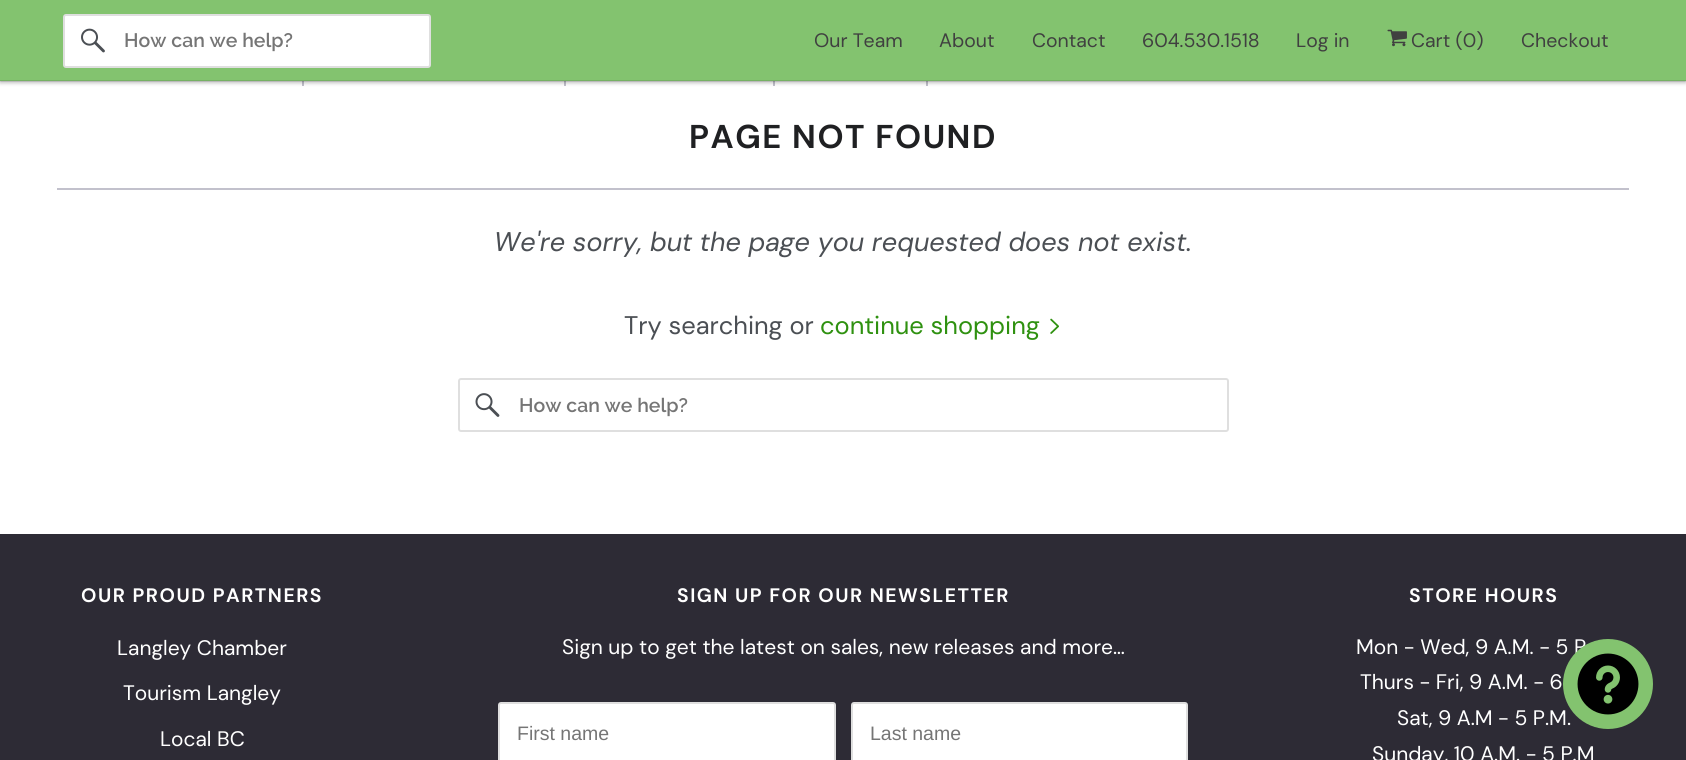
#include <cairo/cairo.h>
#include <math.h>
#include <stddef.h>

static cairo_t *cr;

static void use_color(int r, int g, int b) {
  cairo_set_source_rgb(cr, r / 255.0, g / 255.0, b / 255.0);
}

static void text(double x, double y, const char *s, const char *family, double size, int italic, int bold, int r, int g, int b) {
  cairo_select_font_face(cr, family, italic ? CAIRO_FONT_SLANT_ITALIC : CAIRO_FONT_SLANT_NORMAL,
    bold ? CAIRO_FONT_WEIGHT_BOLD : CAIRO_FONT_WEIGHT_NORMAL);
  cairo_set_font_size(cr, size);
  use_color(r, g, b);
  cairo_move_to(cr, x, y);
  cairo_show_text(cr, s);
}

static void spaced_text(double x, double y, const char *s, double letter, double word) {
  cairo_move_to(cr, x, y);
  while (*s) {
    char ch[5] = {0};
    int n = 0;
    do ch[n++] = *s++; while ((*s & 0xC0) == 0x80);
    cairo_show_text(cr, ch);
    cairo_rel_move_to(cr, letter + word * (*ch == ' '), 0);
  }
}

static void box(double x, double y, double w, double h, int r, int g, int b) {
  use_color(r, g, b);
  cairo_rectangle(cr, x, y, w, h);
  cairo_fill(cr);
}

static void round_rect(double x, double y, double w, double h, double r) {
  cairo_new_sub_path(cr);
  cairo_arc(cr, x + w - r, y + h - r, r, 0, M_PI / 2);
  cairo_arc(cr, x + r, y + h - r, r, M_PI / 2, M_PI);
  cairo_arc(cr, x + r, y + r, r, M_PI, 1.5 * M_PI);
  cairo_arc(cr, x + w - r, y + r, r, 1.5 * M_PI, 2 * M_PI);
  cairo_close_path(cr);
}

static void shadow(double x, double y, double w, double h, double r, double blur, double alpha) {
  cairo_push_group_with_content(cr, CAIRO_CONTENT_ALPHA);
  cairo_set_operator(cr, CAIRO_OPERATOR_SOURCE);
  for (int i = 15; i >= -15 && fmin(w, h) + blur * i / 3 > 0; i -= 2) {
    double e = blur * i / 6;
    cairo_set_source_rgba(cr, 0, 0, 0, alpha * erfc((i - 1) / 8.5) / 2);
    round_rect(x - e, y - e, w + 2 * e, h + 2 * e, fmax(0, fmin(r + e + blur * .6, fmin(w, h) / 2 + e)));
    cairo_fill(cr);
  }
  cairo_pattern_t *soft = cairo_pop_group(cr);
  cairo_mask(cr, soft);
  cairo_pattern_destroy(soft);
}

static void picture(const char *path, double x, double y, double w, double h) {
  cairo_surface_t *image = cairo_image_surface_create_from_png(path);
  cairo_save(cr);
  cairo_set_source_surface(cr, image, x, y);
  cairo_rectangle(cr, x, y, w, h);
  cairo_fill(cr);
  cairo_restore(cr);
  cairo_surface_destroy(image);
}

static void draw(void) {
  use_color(255, 255, 255);
  cairo_paint(cr);
  box(302, 81, 2, 5, 194, 193, 204);
  box(564, 81, 2, 5, 194, 193, 204);
  box(773, 81, 2, 5, 194, 193, 204);
  box(926, 81, 2, 5, 194, 193, 204);
  use_color(0, 0, 0);
  shadow(0, 2, 1686, 81, 0, 2, 0.25);
  box(0, 0, 1686, 81, 131, 195, 111);
  cairo_set_source_rgba(cr, 0, 0, 0, 0.1);
  cairo_rectangle(cr, 0, 80, 1686, 2);
  cairo_fill(cr);
  use_color(255, 255, 255);
  round_rect(64, 15, 366, 52, 2);
  cairo_fill_preserve(cr);
  use_color(223, 223, 223);
  cairo_stroke(cr);
  picture("img_01.png", 81, 28, 24, 25);
  picture("img_02.png", 1387, 29, 20, 18);
  box(57, 188, 1572, 2, 194, 193, 204);
  picture("img_03.png", 1050, 318, 9, 16);
  round_rect(459, 379, 769, 52, 2);
  use_color(223, 223, 223);
  cairo_stroke(cr);
  picture("img_04.png", 475, 393, 25, 24);
  box(0, 534, 1686, 226, 45, 43, 53);
  use_color(255, 255, 255);
  round_rect(499, 703, 336, 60, 2);
  cairo_fill_preserve(cr);
  use_color(223, 223, 223);
  cairo_stroke(cr);
  use_color(255, 255, 255);
  round_rect(852, 703, 335, 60, 2);
  cairo_fill_preserve(cr);
  use_color(223, 223, 223);
  cairo_stroke(cr);
  text(124, 47, "How can we help?", "Raleway SemiBold", 19.5, 0, 0, 117, 117, 117);
  text(814, 47, "Our Team", "DM Sans", 19.5, 0, 0, 64, 64, 64);
  text(939, 47, "About", "DM Sans", 19.5, 0, 0, 64, 64, 64);
  text(1032, 47, "Contact", "DM Sans", 19.5, 0, 0, 64, 64, 64);
  text(1142, 47, "604.530.1518", "DM Sans", 19.5, 0, 0, 64, 64, 64);
  text(1296, 47, "Log in", "DM Sans", 19.5, 0, 0, 64, 64, 64);
  text(1411, 47, "Cart (0)", "DM Sans", 19.5, 0, 0, 64, 64, 64);
  text(1521, 47, "Checkout", "DM Sans", 19.5, 0, 0, 64, 64, 64);
  cairo_select_font_face(cr, "DM Sans", CAIRO_FONT_SLANT_NORMAL, CAIRO_FONT_WEIGHT_BOLD);
  cairo_set_font_size(cr, 33);
  use_color(31, 32, 34);
  spaced_text(689, 148, "PAGE NOT FOUND", 1.5, 0);
  text(494, 251, "We're sorry, but the page you requested does not exist.", "DM Sans", 27, 1, 0, 75, 79, 84);
  text(624, 334, "Try searching or", "DM Sans", 25.5, 0, 0, 75, 79, 84);
  text(820, 334, "continue shopping", "DM Sans", 25.5, 0, 0, 47, 145, 16);
  text(519, 412, "How can we help?", "Raleway SemiBold", 19.5, 0, 0, 117, 117, 117);
  cairo_select_font_face(cr, "DM Sans", CAIRO_FONT_SLANT_NORMAL, CAIRO_FONT_WEIGHT_BOLD);
  use_color(255, 255, 255);
  spaced_text(81, 602, "OUR PROUD PARTNERS", 1.5, 0);
  text(117, 655, "Langley Chamber", "DM Sans", 21, 0, 0, 255, 255, 255);
  text(123, 700, "Tourism Langley", "DM Sans", 21, 0, 0, 255, 255, 255);
  text(160, 746, "Local BC", "DM Sans", 21, 0, 0, 255, 255, 255);
  cairo_select_font_face(cr, "DM Sans", CAIRO_FONT_SLANT_NORMAL, CAIRO_FONT_WEIGHT_BOLD);
  cairo_set_font_size(cr, 19.5);
  spaced_text(677, 602, "SIGN UP FOR OUR NEWSLETTER", 1.5, 0);
  text(562, 654, "Sign up to get the latest on sales, new releases and more…", "DM Sans", 21, 0, 0, 255, 255, 255);
  text(517, 740, "First name", "Liberation Sans", 19.5, 0, 0, 117, 117, 117);
  text(870, 740, "Last name", "Liberation Sans", 19.5, 0, 0, 117, 117, 117);
  cairo_select_font_face(cr, "DM Sans", CAIRO_FONT_SLANT_NORMAL, CAIRO_FONT_WEIGHT_BOLD);
  use_color(255, 255, 255);
  spaced_text(1409, 602, "STORE HOURS", 1.5, 0);
  text(1356, 654, "Mon - Wed, 9 A.M. - 5 P", "DM Sans", 21, 0, 0, 255, 255, 255);
  text(1360, 689, "Thurs - Fri, 9 A.M. - 6", "DM Sans", 21, 0, 0, 255, 255, 255);
  text(1397, 725, "Sat, 9 A.M - 5 P.M.", "DM Sans", 21, 0, 0, 255, 255, 255);
  text(1372, 761, "Sunday, 10 A.M. - 5 P.M", "DM Sans", 21, 0, 0, 255, 255, 255);
  use_color(131, 195, 111);
  cairo_new_path(cr);
  cairo_arc(cr, 1608, 684, 45, 0, 2 * M_PI);
  cairo_fill(cr);
  picture("img_05.png", 1577, 653, 62, 62);
}

int main(void) {
  cairo_surface_t *surface = cairo_image_surface_create(CAIRO_FORMAT_RGB24, 1686, 760);
  cr = cairo_create(surface);
  cairo_font_options_t *options = cairo_font_options_create();
  cairo_font_options_set_hint_metrics(options, CAIRO_HINT_METRICS_OFF);
  cairo_font_options_set_hint_style(options, CAIRO_HINT_STYLE_NONE);
  cairo_set_font_options(cr, options);
  cairo_set_miter_limit(cr, 4);
  draw();
  cairo_surface_write_to_png(surface, "out.png");
  cairo_font_options_destroy(options);
  cairo_destroy(cr);
  cairo_surface_destroy(surface);
  return 0;
}
